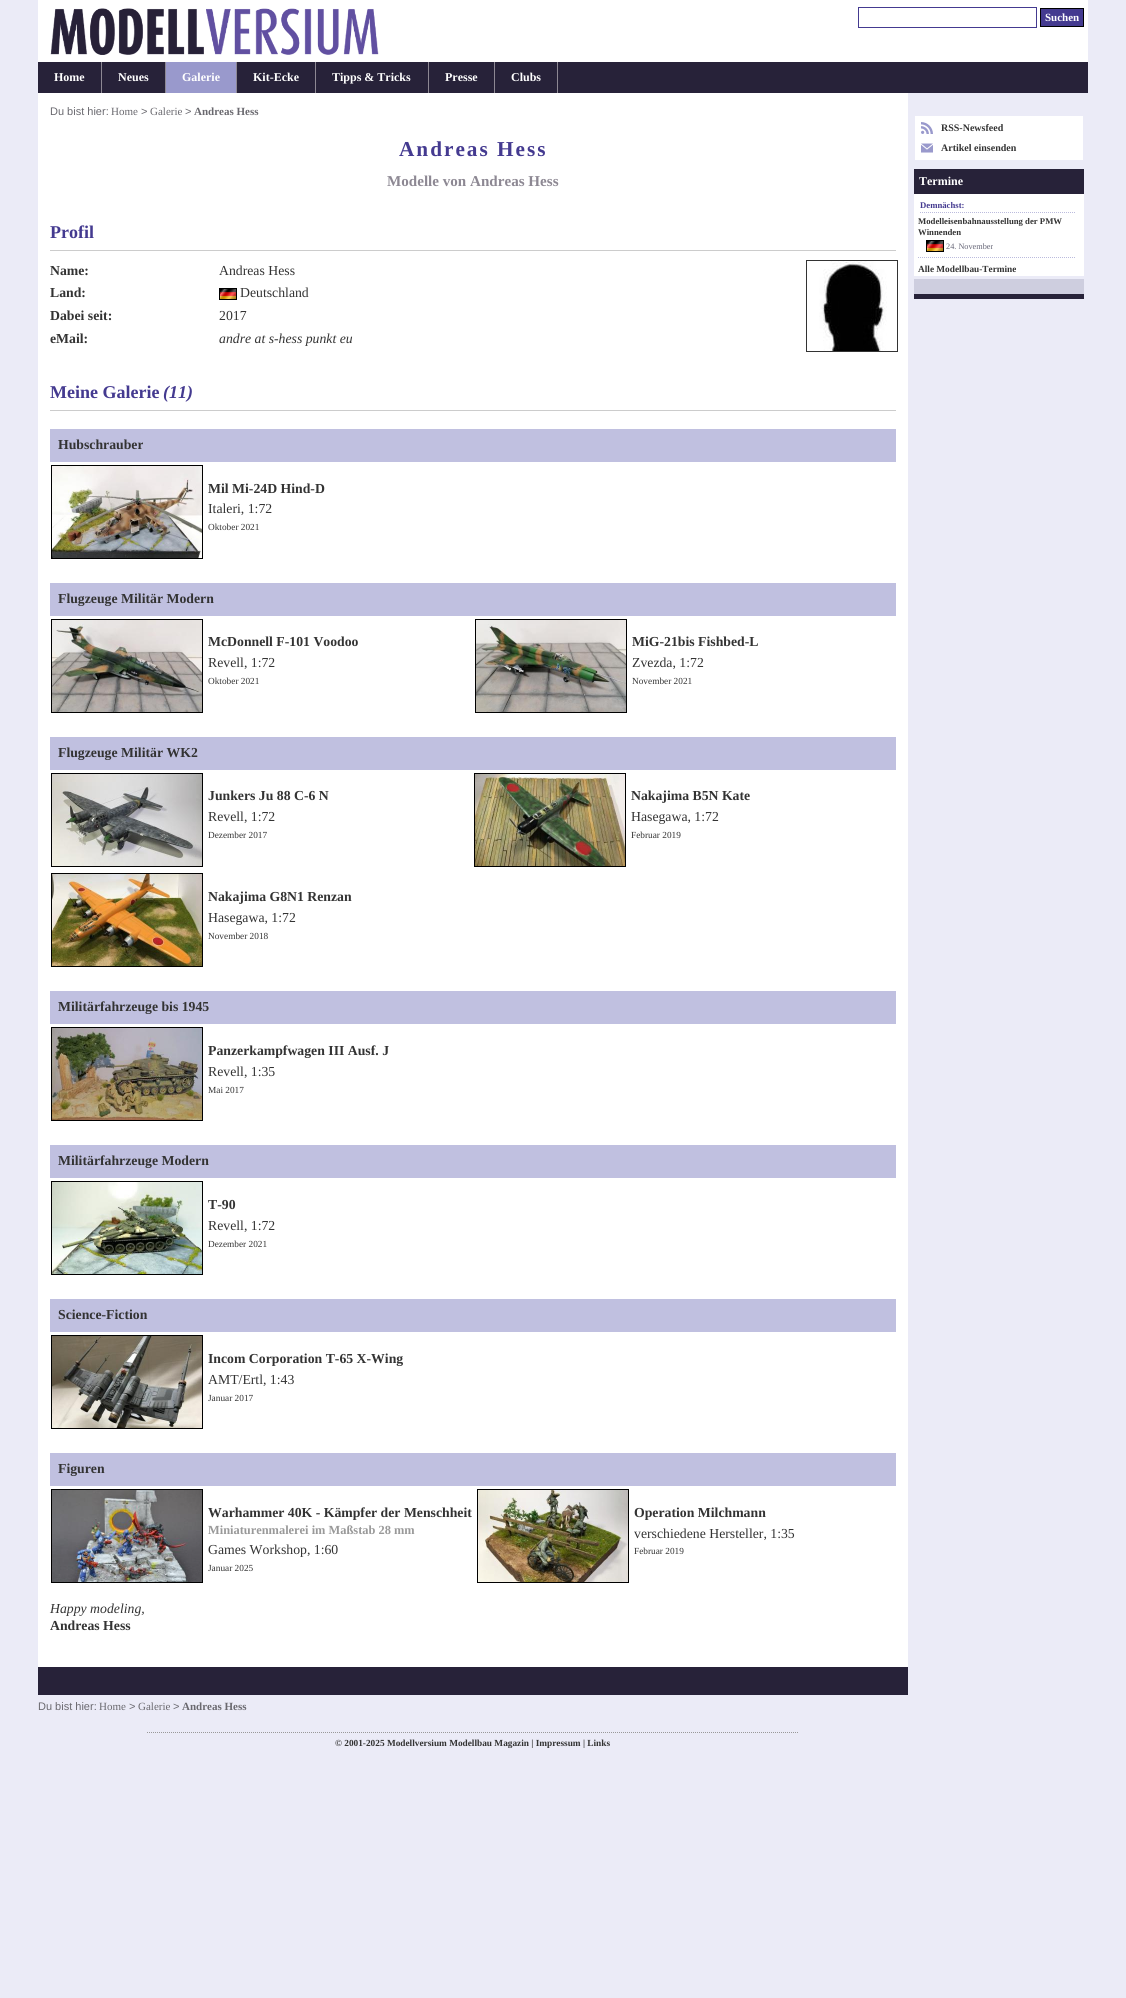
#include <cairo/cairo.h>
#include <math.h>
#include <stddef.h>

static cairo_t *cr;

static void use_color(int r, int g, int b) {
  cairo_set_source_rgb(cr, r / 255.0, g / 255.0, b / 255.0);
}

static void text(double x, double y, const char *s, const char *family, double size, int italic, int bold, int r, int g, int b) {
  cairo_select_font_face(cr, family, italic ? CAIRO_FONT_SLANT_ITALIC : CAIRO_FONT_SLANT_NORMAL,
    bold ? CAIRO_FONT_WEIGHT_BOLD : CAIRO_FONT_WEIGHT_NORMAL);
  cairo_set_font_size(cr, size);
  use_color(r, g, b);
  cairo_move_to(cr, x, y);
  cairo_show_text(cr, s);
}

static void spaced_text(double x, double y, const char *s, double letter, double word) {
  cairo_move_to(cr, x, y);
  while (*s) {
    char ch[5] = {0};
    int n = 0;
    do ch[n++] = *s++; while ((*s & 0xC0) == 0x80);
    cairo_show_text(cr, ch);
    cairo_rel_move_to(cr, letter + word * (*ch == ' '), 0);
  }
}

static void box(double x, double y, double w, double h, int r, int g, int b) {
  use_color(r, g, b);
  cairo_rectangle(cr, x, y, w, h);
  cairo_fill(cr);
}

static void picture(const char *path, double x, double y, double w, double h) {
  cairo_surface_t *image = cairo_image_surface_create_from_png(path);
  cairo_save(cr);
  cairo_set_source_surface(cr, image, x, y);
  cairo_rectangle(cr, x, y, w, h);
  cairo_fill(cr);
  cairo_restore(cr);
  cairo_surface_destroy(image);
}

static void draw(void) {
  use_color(235, 235, 247);
  cairo_paint(cr);
  box(38, 0, 1050, 62, 255, 255, 255);
  picture("img_01.png", 50, 8, 329, 47);
  cairo_rectangle(cr, 858.5, 7.5, 178, 20);
  use_color(68, 58, 144);
  cairo_set_line_width(cr, 1);
  cairo_stroke(cr);
  cairo_rectangle(cr, 1040.5, 8.5, 43, 18);
  cairo_fill_preserve(cr);
  use_color(0, 0, 0);
  cairo_stroke(cr);
  box(38, 62, 1050, 31, 39, 34, 57);
  box(101, 62, 1, 31, 141, 136, 147);
  box(165, 62, 1, 31, 141, 136, 147);
  box(166, 62, 70, 31, 153, 153, 204);
  box(236, 62, 1, 31, 141, 136, 147);
  box(315, 62, 1, 31, 141, 136, 147);
  box(428, 62, 1, 31, 141, 136, 147);
  box(494, 62, 1, 31, 141, 136, 147);
  box(557, 62, 1, 31, 141, 136, 147);
  box(38, 93, 870, 1574, 255, 255, 255);
  box(38, 1667, 870, 28, 39, 34, 57);
  box(50, 250, 846, 1, 204, 204, 204);
  picture("img_02.png", 219, 288, 18, 12);
  cairo_rectangle(cr, 806.5, 260.5, 91, 91);
  use_color(51, 51, 51);
  cairo_stroke(cr);
  picture("img_03.png", 819, 261, 68, 90);
  box(50, 410, 846, 1, 204, 204, 204);
  box(50, 429, 846, 33, 192, 192, 224);
  cairo_rectangle(cr, 51.5, 465.5, 151, 93);
  use_color(0, 0, 0);
  cairo_stroke(cr);
  picture("img_04.png", 52, 466, 150, 92);
  box(50, 583, 846, 33, 192, 192, 224);
  cairo_rectangle(cr, 51.5, 619.5, 151, 93);
  use_color(0, 0, 0);
  cairo_stroke(cr);
  picture("img_05.png", 52, 620, 150, 92);
  cairo_rectangle(cr, 475.5, 619.5, 151, 93);
  cairo_stroke(cr);
  picture("img_06.png", 476, 620, 150, 92);
  box(50, 737, 846, 33, 192, 192, 224);
  cairo_rectangle(cr, 51.5, 773.5, 151, 93);
  use_color(0, 0, 0);
  cairo_stroke(cr);
  picture("img_07.png", 52, 774, 150, 92);
  cairo_rectangle(cr, 474.5, 773.5, 151, 93);
  cairo_stroke(cr);
  picture("img_08.png", 475, 774, 150, 92);
  cairo_rectangle(cr, 51.5, 873.5, 151, 93);
  cairo_stroke(cr);
  picture("img_09.png", 52, 874, 150, 92);
  box(50, 991, 846, 33, 192, 192, 224);
  cairo_rectangle(cr, 51.5, 1027.5, 151, 93);
  use_color(0, 0, 0);
  cairo_stroke(cr);
  picture("img_10.png", 52, 1028, 150, 92);
  box(50, 1145, 846, 33, 192, 192, 224);
  cairo_rectangle(cr, 51.5, 1181.5, 151, 93);
  use_color(0, 0, 0);
  cairo_stroke(cr);
  picture("img_11.png", 52, 1182, 150, 92);
  box(50, 1299, 846, 33, 192, 192, 224);
  cairo_rectangle(cr, 51.5, 1335.5, 151, 93);
  use_color(0, 0, 0);
  cairo_stroke(cr);
  picture("img_12.png", 52, 1336, 150, 92);
  box(50, 1453, 846, 33, 192, 192, 224);
  cairo_rectangle(cr, 51.5, 1489.5, 151, 93);
  use_color(0, 0, 0);
  cairo_stroke(cr);
  picture("img_13.png", 52, 1490, 150, 92);
  cairo_rectangle(cr, 477.5, 1489.5, 151, 93);
  cairo_stroke(cr);
  picture("img_14.png", 478, 1490, 150, 92);
  cairo_new_path(cr);
  cairo_move_to(cr, 147, 1732.5);
  cairo_line_to(cr, 799, 1732.5);
  use_color(153, 153, 153);
  cairo_set_dash(cr, (double[]){1, 1}, 2, 0);
  cairo_stroke(cr);
  box(915, 116, 168, 44, 255, 255, 255);
  picture("img_15.png", 921, 122, 12, 12);
  picture("img_16.png", 921, 143, 12, 10);
  box(914, 194, 170, 82, 255, 255, 255);
  box(914, 169, 170, 25, 39, 34, 57);
  cairo_new_path(cr);
  cairo_move_to(cr, 920, 212.5);
  cairo_line_to(cr, 1076, 212.5);
  use_color(187, 187, 221);
  cairo_stroke(cr);
  cairo_new_path(cr);
  cairo_move_to(cr, 918, 257.5);
  cairo_line_to(cr, 1076, 257.5);
  cairo_stroke(cr);
  picture("img_02.png", 926, 240, 18, 12);
  box(914, 279, 170, 15, 206, 206, 223);
  box(914, 294, 170, 5, 39, 34, 57);
  text(1045, 21, "Suchen", "Liberation Serif", 11, 0, 1, 255, 255, 255);
  text(54, 81, "Home", "Liberation Serif", 12, 0, 1, 255, 255, 255);
  text(118, 81, "Neues", "Liberation Serif", 12, 0, 1, 255, 255, 255);
  text(182, 81, "Galerie", "Liberation Serif", 12, 0, 1, 255, 255, 255);
  text(253, 81, "Kit-Ecke", "Liberation Serif", 12, 0, 1, 255, 255, 255);
  text(332, 81, "Tipps & Tricks", "Liberation Serif", 12, 0, 1, 255, 255, 255);
  text(445, 81, "Presse", "Liberation Serif", 12, 0, 1, 255, 255, 255);
  text(511, 81, "Clubs", "Liberation Serif", 12, 0, 1, 255, 255, 255);
  text(50, 115, "Du bist hier:", "Liberation Sans", 11, 0, 0, 106, 105, 111);
  text(111, 115, "Home", "Liberation Serif", 11, 0, 0, 106, 105, 111);
  text(141, 115, ">", "Liberation Sans", 11, 0, 0, 106, 105, 111);
  text(150, 115, "Galerie", "Liberation Serif", 11, 0, 0, 106, 105, 111);
  text(185, 115, ">", "Liberation Sans", 11, 0, 0, 106, 105, 111);
  text(194, 115, "Andreas Hess", "Liberation Serif", 11, 0, 1, 106, 105, 111);
  cairo_set_font_size(cr, 21.25);
  use_color(68, 58, 144);
  spaced_text(399, 156, "Andreas Hess", 2, 0);
  text(387, 186, "Modelle von Andreas Hess", "Liberation Serif", 15.1, 0, 1, 141, 136, 147);
  text(50, 238, "Profil", "Liberation Serif", 18, 0, 1, 68, 58, 144);
  text(50, 275, "Name:", "Liberation Serif", 13.75, 0, 1, 51, 51, 51);
  text(219, 275, "Andreas Hess", "Liberation Serif", 13.75, 0, 0, 51, 51, 51);
  text(50, 297, "Land:", "Liberation Serif", 13.75, 0, 1, 51, 51, 51);
  text(240, 297, "Deutschland", "Liberation Serif", 13.75, 0, 0, 51, 51, 51);
  text(50, 320, "Dabei seit:", "Liberation Serif", 13.75, 0, 1, 51, 51, 51);
  text(219, 320, "2017", "Liberation Serif", 13.75, 0, 0, 51, 51, 51);
  text(50, 343, "eMail:", "Liberation Serif", 13.75, 0, 1, 51, 51, 51);
  text(219, 343, "andre at s-hess punkt eu", "Liberation Serif", 13.75, 1, 0, 51, 51, 51);
  text(50, 398, "Meine Galerie", "Liberation Serif", 18, 0, 1, 68, 58, 144);
  text(163, 398, "(11)", "Liberation Serif", 18, 1, 1, 68, 58, 144);
  text(58, 449, "Hubschrauber", "Liberation Serif", 13.75, 0, 1, 51, 51, 51);
  text(208, 493, "Mil Mi-24D Hind-D", "Liberation Serif", 13.75, 0, 1, 51, 51, 51);
  text(208, 513, "Italeri, 1:72", "Liberation Serif", 13.75, 0, 0, 51, 51, 51);
  text(208, 530, "Oktober 2021", "Liberation Serif", 9.3, 0, 0, 51, 51, 51);
  text(58, 603, "Flugzeuge Militär Modern", "Liberation Serif", 13.75, 0, 1, 51, 51, 51);
  text(208, 646, "McDonnell F-101 Voodoo", "Liberation Serif", 13.75, 0, 1, 51, 51, 51);
  text(208, 667, "Revell, 1:72", "Liberation Serif", 13.75, 0, 0, 51, 51, 51);
  text(208, 684, "Oktober 2021", "Liberation Serif", 9.3, 0, 0, 51, 51, 51);
  text(632, 646, "MiG-21bis Fishbed-L", "Liberation Serif", 13.75, 0, 1, 51, 51, 51);
  text(632, 667, "Zvezda, 1:72", "Liberation Serif", 13.75, 0, 0, 51, 51, 51);
  text(632, 684, "November 2021", "Liberation Serif", 9.3, 0, 0, 51, 51, 51);
  text(58, 757, "Flugzeuge Militär WK2", "Liberation Serif", 13.75, 0, 1, 51, 51, 51);
  text(208, 800, "Junkers Ju 88 C-6 N", "Liberation Serif", 13.75, 0, 1, 51, 51, 51);
  text(208, 821, "Revell, 1:72", "Liberation Serif", 13.75, 0, 0, 51, 51, 51);
  text(208, 838, "Dezember 2017", "Liberation Serif", 9.3, 0, 0, 51, 51, 51);
  text(631, 800, "Nakajima B5N Kate", "Liberation Serif", 13.75, 0, 1, 51, 51, 51);
  text(631, 821, "Hasegawa, 1:72", "Liberation Serif", 13.75, 0, 0, 51, 51, 51);
  text(631, 838, "Februar 2019", "Liberation Serif", 9.3, 0, 0, 51, 51, 51);
  text(208, 901, "Nakajima G8N1 Renzan", "Liberation Serif", 13.75, 0, 1, 51, 51, 51);
  text(208, 922, "Hasegawa, 1:72", "Liberation Serif", 13.75, 0, 0, 51, 51, 51);
  text(208, 939, "November 2018", "Liberation Serif", 9.3, 0, 0, 51, 51, 51);
  text(58, 1011, "Militärfahrzeuge bis 1945", "Liberation Serif", 13.75, 0, 1, 51, 51, 51);
  text(208, 1055, "Panzerkampfwagen III Ausf. J", "Liberation Serif", 13.75, 0, 1, 51, 51, 51);
  text(208, 1076, "Revell, 1:35", "Liberation Serif", 13.75, 0, 0, 51, 51, 51);
  text(208, 1093, "Mai 2017", "Liberation Serif", 9.3, 0, 0, 51, 51, 51);
  text(58, 1165, "Militärfahrzeuge Modern", "Liberation Serif", 13.75, 0, 1, 51, 51, 51);
  text(208, 1209, "T-90", "Liberation Serif", 13.75, 0, 1, 51, 51, 51);
  text(208, 1230, "Revell, 1:72", "Liberation Serif", 13.75, 0, 0, 51, 51, 51);
  text(208, 1247, "Dezember 2021", "Liberation Serif", 9.3, 0, 0, 51, 51, 51);
  text(58, 1319, "Science-Fiction", "Liberation Serif", 13.75, 0, 1, 51, 51, 51);
  text(208, 1363, "Incom Corporation T-65 X-Wing", "Liberation Serif", 13.75, 0, 1, 51, 51, 51);
  text(208, 1384, "AMT/Ertl, 1:43", "Liberation Serif", 13.75, 0, 0, 51, 51, 51);
  text(208, 1401, "Januar 2017", "Liberation Serif", 9.3, 0, 0, 51, 51, 51);
  text(58, 1473, "Figuren", "Liberation Serif", 13.75, 0, 1, 51, 51, 51);
  text(208, 1517, "Warhammer 40K - Kämpfer der Menschheit", "Liberation Serif", 13.75, 0, 1, 51, 51, 51);
  text(208, 1534, "Miniaturenmalerei im Maßstab 28 mm", "Liberation Serif", 12.4, 0, 1, 153, 153, 153);
  text(208, 1554, "Games Workshop, 1:60", "Liberation Serif", 13.75, 0, 0, 51, 51, 51);
  text(208, 1571, "Januar 2025", "Liberation Serif", 9.3, 0, 0, 51, 51, 51);
  text(634, 1517, "Operation Milchmann", "Liberation Serif", 13.75, 0, 1, 51, 51, 51);
  text(634, 1538, "verschiedene Hersteller, 1:35", "Liberation Serif", 13.75, 0, 0, 51, 51, 51);
  text(634, 1554, "Februar 2019", "Liberation Serif", 9.3, 0, 0, 51, 51, 51);
  text(50, 1613, "Happy modeling,", "Liberation Serif", 13.75, 1, 0, 51, 51, 51);
  text(50, 1630, "Andreas Hess", "Liberation Serif", 13.75, 0, 1, 51, 51, 51);
  text(38, 1710, "Du bist hier:", "Liberation Sans", 11, 0, 0, 106, 105, 111);
  text(99, 1710, "Home", "Liberation Serif", 11, 0, 0, 106, 105, 111);
  text(129, 1710, ">", "Liberation Sans", 11, 0, 0, 106, 105, 111);
  text(138, 1710, "Galerie", "Liberation Serif", 11, 0, 0, 106, 105, 111);
  text(173, 1710, ">", "Liberation Sans", 11, 0, 0, 106, 105, 111);
  text(182, 1710, "Andreas Hess", "Liberation Serif", 11, 0, 1, 106, 105, 111);
  text(335, 1746, "© 2001-2025 Modellversium Modellbau Magazin | Impressum | Links", "Liberation Serif", 9.3, 0, 1, 51, 51, 51);
  text(941, 131, "RSS-Newsfeed", "Liberation Serif", 10, 0, 1, 51, 51, 51);
  text(941, 151, "Artikel einsenden", "Liberation Serif", 10, 0, 1, 51, 51, 51);
  text(919, 185, "Termine", "Liberation Serif", 12, 0, 1, 255, 255, 255);
  text(920, 208, "Demnächst:", "Liberation Serif", 8.7, 0, 1, 68, 58, 144);
  text(918, 224, "Modelleisenbahnausstellung der PMW", "Liberation Serif", 8.7, 0, 1, 51, 51, 51);
  text(918, 235, "Winnenden", "Liberation Serif", 8.7, 0, 1, 51, 51, 51);
  text(946, 249, "24. November", "Liberation Serif", 8.25, 0, 0, 102, 102, 119);
  text(918, 272, "Alle Modellbau-Termine", "Liberation Serif", 9.3, 0, 1, 51, 51, 51);
}

int main(void) {
  cairo_surface_t *surface = cairo_image_surface_create(CAIRO_FORMAT_RGB24, 1126, 1998);
  cr = cairo_create(surface);
  cairo_font_options_t *options = cairo_font_options_create();
  cairo_font_options_set_hint_metrics(options, CAIRO_HINT_METRICS_OFF);
  cairo_font_options_set_hint_style(options, CAIRO_HINT_STYLE_NONE);
  cairo_set_font_options(cr, options);
  cairo_set_miter_limit(cr, 4);
  draw();
  cairo_surface_write_to_png(surface, "out.png");
  cairo_font_options_destroy(options);
  cairo_destroy(cr);
  cairo_surface_destroy(surface);
  return 0;
}
